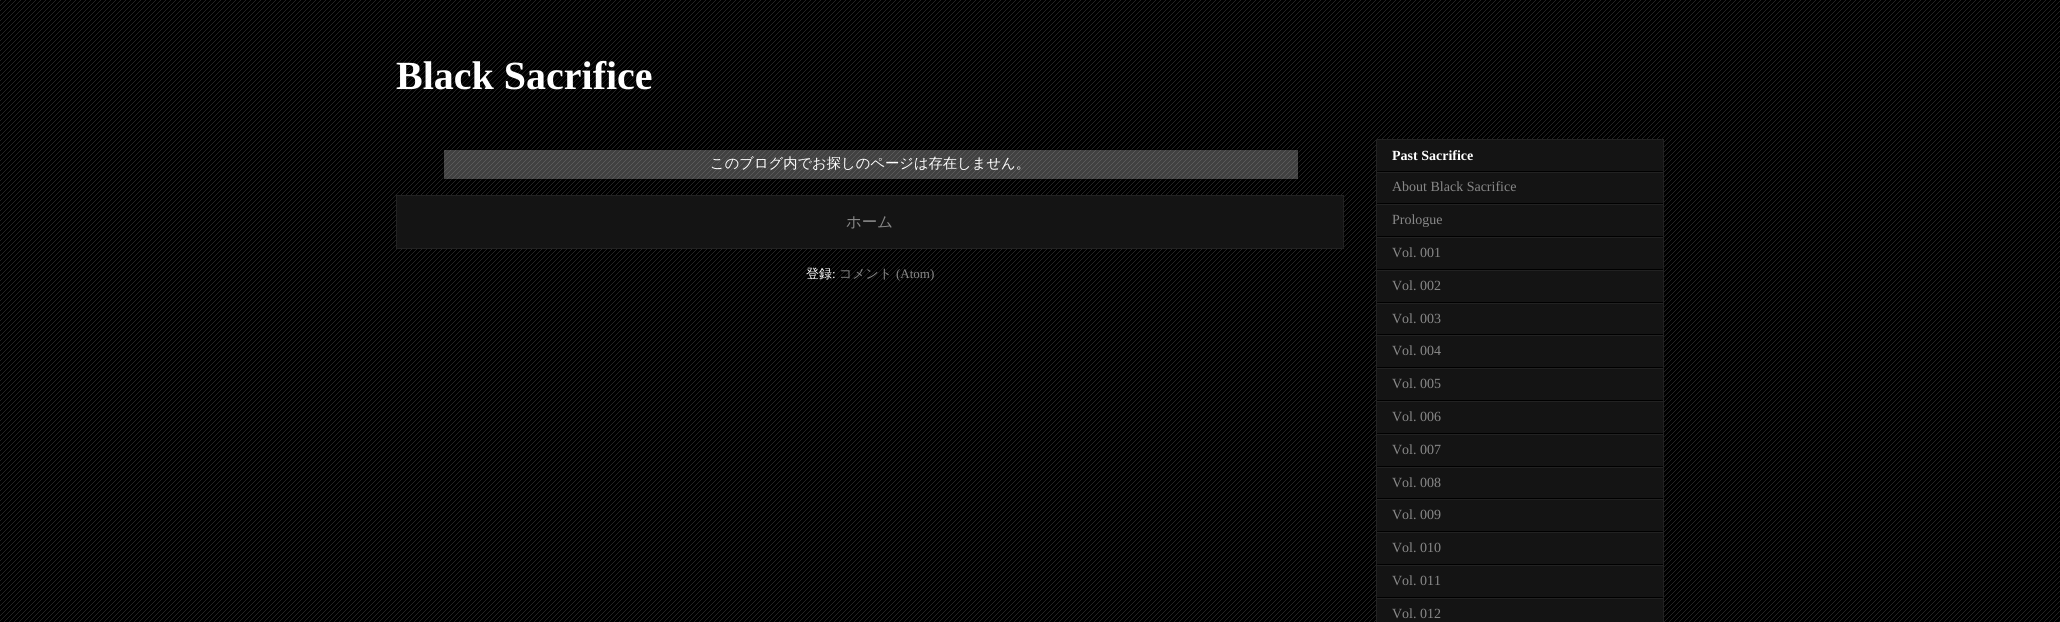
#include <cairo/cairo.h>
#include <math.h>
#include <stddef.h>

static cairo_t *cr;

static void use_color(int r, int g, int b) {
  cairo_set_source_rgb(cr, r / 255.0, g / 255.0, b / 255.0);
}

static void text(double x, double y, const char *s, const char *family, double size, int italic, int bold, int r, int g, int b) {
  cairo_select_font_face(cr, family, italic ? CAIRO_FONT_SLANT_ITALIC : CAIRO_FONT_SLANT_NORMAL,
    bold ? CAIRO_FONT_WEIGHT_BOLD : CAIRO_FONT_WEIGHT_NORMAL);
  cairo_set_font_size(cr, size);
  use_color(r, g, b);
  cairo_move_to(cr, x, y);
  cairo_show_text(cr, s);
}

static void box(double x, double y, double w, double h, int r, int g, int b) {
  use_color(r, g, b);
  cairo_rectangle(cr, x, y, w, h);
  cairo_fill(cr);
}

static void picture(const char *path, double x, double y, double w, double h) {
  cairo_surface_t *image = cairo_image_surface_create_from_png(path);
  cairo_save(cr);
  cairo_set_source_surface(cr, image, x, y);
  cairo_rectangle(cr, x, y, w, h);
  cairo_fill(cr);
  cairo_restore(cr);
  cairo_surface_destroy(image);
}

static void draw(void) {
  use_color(0, 0, 0);
  cairo_paint(cr);
  picture("img_01.png", 0, 0, 2060, 622);
  cairo_rectangle(cr, 443.5, 149.5, 855, 30);
  cairo_set_source_rgba(cr, 0, 0, 0, 0.4);
  cairo_set_line_width(cr, 1);
  cairo_stroke(cr);
  cairo_set_source_rgba(cr, 0.8, 0.8, 0.8, 0.32);
  cairo_rectangle(cr, 444, 150, 854, 29);
  cairo_fill(cr);
  use_color(20, 20, 20);
  cairo_rectangle(cr, 396.5, 195.5, 947, 53);
  cairo_fill_preserve(cr);
  use_color(34, 34, 34);
  cairo_stroke(cr);
  use_color(20, 20, 20);
  cairo_rectangle(cr, 1376.5, 139.5, 287, 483);
  cairo_fill_preserve(cr);
  use_color(34, 34, 34);
  cairo_stroke(cr);
  box(1377, 171, 286, 1, 0, 0, 0);
  box(1377, 172, 286, 1, 34, 34, 34);
  box(1377, 203, 286, 1, 0, 0, 0);
  box(1377, 204, 286, 1, 34, 34, 34);
  box(1377, 236, 286, 1, 0, 0, 0);
  box(1377, 237, 286, 1, 34, 34, 34);
  box(1377, 269, 286, 1, 0, 0, 0);
  box(1377, 270, 286, 1, 34, 34, 34);
  box(1377, 302, 286, 1, 0, 0, 0);
  box(1377, 303, 286, 1, 34, 34, 34);
  box(1377, 334, 286, 1, 0, 0, 0);
  box(1377, 335, 286, 1, 34, 34, 34);
  box(1377, 367, 286, 1, 0, 0, 0);
  box(1377, 368, 286, 1, 34, 34, 34);
  box(1377, 400, 286, 1, 0, 0, 0);
  box(1377, 401, 286, 1, 34, 34, 34);
  box(1377, 433, 286, 1, 0, 0, 0);
  box(1377, 434, 286, 1, 34, 34, 34);
  box(1377, 466, 286, 1, 0, 0, 0);
  box(1377, 467, 286, 1, 34, 34, 34);
  box(1377, 498, 286, 1, 0, 0, 0);
  box(1377, 499, 286, 1, 34, 34, 34);
  box(1377, 531, 286, 1, 0, 0, 0);
  box(1377, 532, 286, 1, 34, 34, 34);
  box(1377, 564, 286, 1, 0, 0, 0);
  box(1377, 565, 286, 1, 34, 34, 34);
  box(1377, 597, 286, 1, 0, 0, 0);
  box(1377, 598, 286, 1, 34, 34, 34);
  text(396, 89, "Black Sacrifice", "Liberation Serif", 40, 0, 1, 255, 255, 255);
  text(710, 168, "このブログ内でお探しのページは存在しません。", "WenQuanYi Zen Hei Medium", 14.3, 0, 0, 255, 255, 255);
  text(846, 227, "ホーム", "WenQuanYi Zen Hei Medium", 15.5, 0, 0, 136, 136, 136);
  text(806, 278, "登録", "WenQuanYi Zen Hei Medium", 13, 0, 0, 255, 255, 255);
  text(832, 278, ":", "Liberation Serif", 13, 0, 0, 255, 255, 255);
  text(839, 278, "コメント", "WenQuanYi Zen Hei Medium", 13, 0, 0, 136, 136, 136);
  text(896, 278, "(Atom)", "Liberation Serif", 13, 0, 0, 136, 136, 136);
  text(1392, 160, "Past Sacrifice", "Liberation Serif", 14, 0, 1, 255, 255, 255);
  text(1392, 191, "About Black Sacrifice", "Liberation Serif", 14, 0, 0, 136, 136, 136);
  text(1392, 224, "Prologue", "Liberation Serif", 14, 0, 0, 136, 136, 136);
  text(1392, 257, "Vol. 001", "Liberation Serif", 14, 0, 0, 136, 136, 136);
  text(1392, 290, "Vol. 002", "Liberation Serif", 14, 0, 0, 136, 136, 136);
  text(1392, 323, "Vol. 003", "Liberation Serif", 14, 0, 0, 136, 136, 136);
  text(1392, 355, "Vol. 004", "Liberation Serif", 14, 0, 0, 136, 136, 136);
  text(1392, 388, "Vol. 005", "Liberation Serif", 14, 0, 0, 136, 136, 136);
  text(1392, 421, "Vol. 006", "Liberation Serif", 14, 0, 0, 136, 136, 136);
  text(1392, 454, "Vol. 007", "Liberation Serif", 14, 0, 0, 136, 136, 136);
  text(1392, 487, "Vol. 008", "Liberation Serif", 14, 0, 0, 136, 136, 136);
  text(1392, 519, "Vol. 009", "Liberation Serif", 14, 0, 0, 136, 136, 136);
  text(1392, 552, "Vol. 010", "Liberation Serif", 14, 0, 0, 136, 136, 136);
  text(1392, 585, "Vol. 011", "Liberation Serif", 14, 0, 0, 136, 136, 136);
  text(1392, 618, "Vol. 012", "Liberation Serif", 14, 0, 0, 136, 136, 136);
}

int main(void) {
  cairo_surface_t *surface = cairo_image_surface_create(CAIRO_FORMAT_RGB24, 2060, 622);
  cr = cairo_create(surface);
  cairo_font_options_t *options = cairo_font_options_create();
  cairo_font_options_set_hint_metrics(options, CAIRO_HINT_METRICS_OFF);
  cairo_font_options_set_hint_style(options, CAIRO_HINT_STYLE_NONE);
  cairo_set_font_options(cr, options);
  cairo_set_miter_limit(cr, 4);
  draw();
  cairo_surface_write_to_png(surface, "out.png");
  cairo_font_options_destroy(options);
  cairo_destroy(cr);
  cairo_surface_destroy(surface);
  return 0;
}
